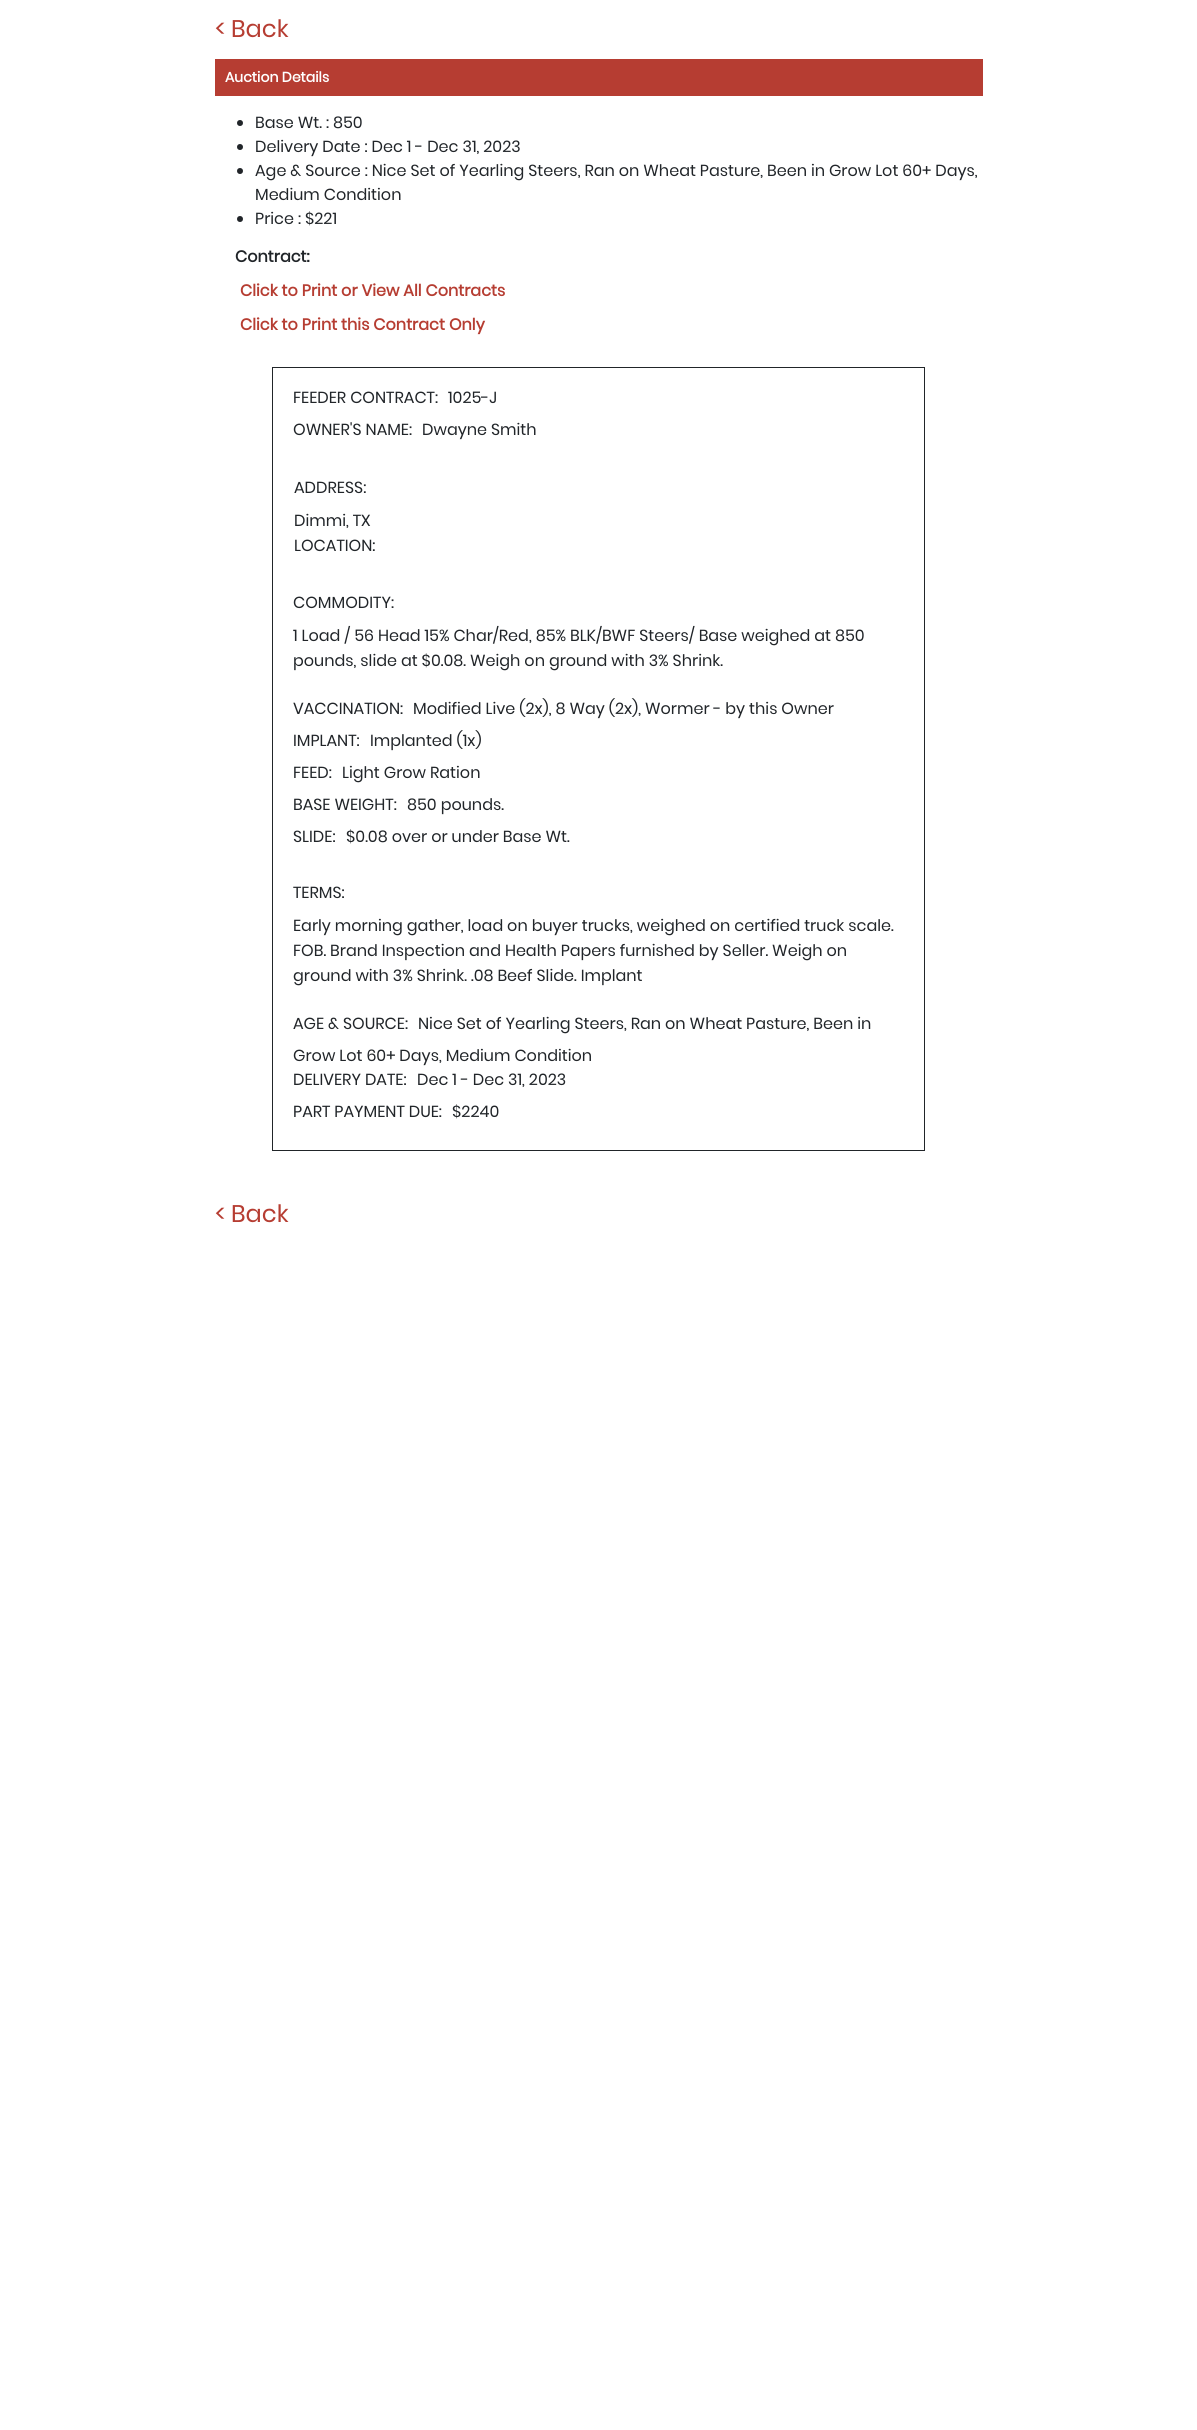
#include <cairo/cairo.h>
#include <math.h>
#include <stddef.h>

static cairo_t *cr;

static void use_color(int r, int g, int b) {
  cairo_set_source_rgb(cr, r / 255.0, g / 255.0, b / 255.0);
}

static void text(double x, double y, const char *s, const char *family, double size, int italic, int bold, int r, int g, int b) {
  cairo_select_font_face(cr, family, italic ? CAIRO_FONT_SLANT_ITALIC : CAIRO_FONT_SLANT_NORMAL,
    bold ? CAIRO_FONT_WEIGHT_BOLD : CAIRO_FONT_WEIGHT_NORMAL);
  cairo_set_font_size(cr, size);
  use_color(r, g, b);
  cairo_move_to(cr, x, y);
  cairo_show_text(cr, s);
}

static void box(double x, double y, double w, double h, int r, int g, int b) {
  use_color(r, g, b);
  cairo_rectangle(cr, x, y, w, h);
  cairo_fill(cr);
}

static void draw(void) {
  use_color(255, 255, 255);
  cairo_paint(cr);
  box(215, 59, 768, 37, 182, 61, 50);
  use_color(33, 37, 41);
  cairo_arc(cr, 240, 123, 3, 0, 2 * M_PI);
  cairo_fill(cr);
  cairo_arc(cr, 240, 147, 3, 0, 2 * M_PI);
  cairo_fill(cr);
  cairo_arc(cr, 240, 171, 3, 0, 2 * M_PI);
  cairo_fill(cr);
  cairo_arc(cr, 240, 219, 3, 0, 2 * M_PI);
  cairo_fill(cr);
  cairo_rectangle(cr, 272.5, 367.5, 652, 783);
  cairo_set_line_width(cr, 1);
  cairo_stroke(cr);
  text(215, 37, "< Back", "Poppins", 24, 0, 0, 182, 61, 50);
  text(225, 82, "Auction Details", "Poppins", 14, 0, 1, 255, 255, 255);
  text(255, 128, "Base Wt. : 850", "Poppins", 16, 0, 0, 33, 37, 41);
  text(255, 152, "Delivery Date : Dec 1 - Dec 31, 2023", "Poppins", 16, 0, 0, 33, 37, 41);
  text(255, 176, "Age & Source : Nice Set of Yearling Steers, Ran on Wheat Pasture, Been in Grow Lot 60+ Days,", "Poppins", 16, 0, 0, 33, 37, 41);
  text(255, 200, "Medium Condition", "Poppins", 16, 0, 0, 33, 37, 41);
  text(255, 224, "Price : $221", "Poppins", 16, 0, 0, 33, 37, 41);
  text(235, 262, "Contract:", "Poppins", 16, 0, 1, 33, 37, 41);
  text(240, 296, "Click to Print or View All Contracts", "Poppins", 16, 0, 1, 182, 61, 50);
  text(240, 330, "Click to Print this Contract Only", "Poppins", 16, 0, 1, 182, 61, 50);
  text(293, 403, "FEEDER CONTRACT:", "Poppins", 16, 0, 0, 33, 37, 41);
  text(448, 403, "1025-J", "Poppins", 16, 0, 0, 33, 37, 41);
  text(293, 435, "OWNER'S NAME:", "Poppins", 16, 0, 0, 33, 37, 41);
  text(422, 435, "Dwayne Smith", "Poppins", 16, 0, 0, 33, 37, 41);
  text(294, 493, "ADDRESS:", "Poppins", 16, 0, 0, 33, 37, 41);
  text(294, 526, "Dimmi, TX", "Poppins", 16, 0, 0, 33, 37, 41);
  text(294, 551, "LOCATION:", "Poppins", 16, 0, 0, 33, 37, 41);
  text(293, 608, "COMMODITY:", "Poppins", 16, 0, 0, 33, 37, 41);
  text(293, 641, "1 Load / 56 Head 15% Char/Red, 85% BLK/BWF Steers/ Base weighed at 850", "Poppins", 16, 0, 0, 33, 37, 41);
  text(293, 666, "pounds, slide at $0.08. Weigh on ground with 3% Shrink.", "Poppins", 16, 0, 0, 33, 37, 41);
  text(293, 714, "VACCINATION:", "Poppins", 16, 0, 0, 33, 37, 41);
  text(413, 714, "Modified Live (2x), 8 Way (2x), Wormer - by this Owner", "Poppins", 16, 0, 0, 33, 37, 41);
  text(293, 746, "IMPLANT:", "Poppins", 16, 0, 0, 33, 37, 41);
  text(370, 746, "Implanted (1x)", "Poppins", 16, 0, 0, 33, 37, 41);
  text(293, 778, "FEED:", "Poppins", 16, 0, 0, 33, 37, 41);
  text(342, 778, "Light Grow Ration", "Poppins", 16, 0, 0, 33, 37, 41);
  text(293, 810, "BASE WEIGHT:", "Poppins", 16, 0, 0, 33, 37, 41);
  text(407, 810, "850 pounds.", "Poppins", 16, 0, 0, 33, 37, 41);
  text(293, 842, "SLIDE:", "Poppins", 16, 0, 0, 33, 37, 41);
  text(346, 842, "$0.08 over or under Base Wt.", "Poppins", 16, 0, 0, 33, 37, 41);
  text(293, 898, "TERMS:", "Poppins", 16, 0, 0, 33, 37, 41);
  text(293, 931, "Early morning gather, load on buyer trucks, weighed on certified truck scale.", "Poppins", 16, 0, 0, 33, 37, 41);
  text(293, 956, "FOB. Brand Inspection and Health Papers furnished by Seller. Weigh on", "Poppins", 16, 0, 0, 33, 37, 41);
  text(293, 981, "ground with 3% Shrink. .08 Beef Slide. Implant", "Poppins", 16, 0, 0, 33, 37, 41);
  text(293, 1029, "AGE & SOURCE:", "Poppins", 16, 0, 0, 33, 37, 41);
  text(418, 1029, "Nice Set of Yearling Steers, Ran on Wheat Pasture, Been in", "Poppins", 16, 0, 0, 33, 37, 41);
  text(293, 1061, "Grow Lot 60+ Days, Medium Condition", "Poppins", 16, 0, 0, 33, 37, 41);
  text(293, 1085, "DELIVERY DATE:", "Poppins", 16, 0, 0, 33, 37, 41);
  text(417, 1085, "Dec 1 - Dec 31, 2023", "Poppins", 16, 0, 0, 33, 37, 41);
  text(293, 1117, "PART PAYMENT DUE:", "Poppins", 16, 0, 0, 33, 37, 41);
  text(452, 1117, "$2240", "Poppins", 16, 0, 0, 33, 37, 41);
  text(215, 1222, "< Back", "Poppins", 24, 0, 0, 182, 61, 50);
}

int main(void) {
  cairo_surface_t *surface = cairo_image_surface_create(CAIRO_FORMAT_RGB24, 1197, 2430);
  cr = cairo_create(surface);
  cairo_font_options_t *options = cairo_font_options_create();
  cairo_font_options_set_hint_metrics(options, CAIRO_HINT_METRICS_OFF);
  cairo_font_options_set_hint_style(options, CAIRO_HINT_STYLE_NONE);
  cairo_set_font_options(cr, options);
  cairo_set_miter_limit(cr, 4);
  draw();
  cairo_surface_write_to_png(surface, "out.png");
  cairo_font_options_destroy(options);
  cairo_destroy(cr);
  cairo_surface_destroy(surface);
  return 0;
}
